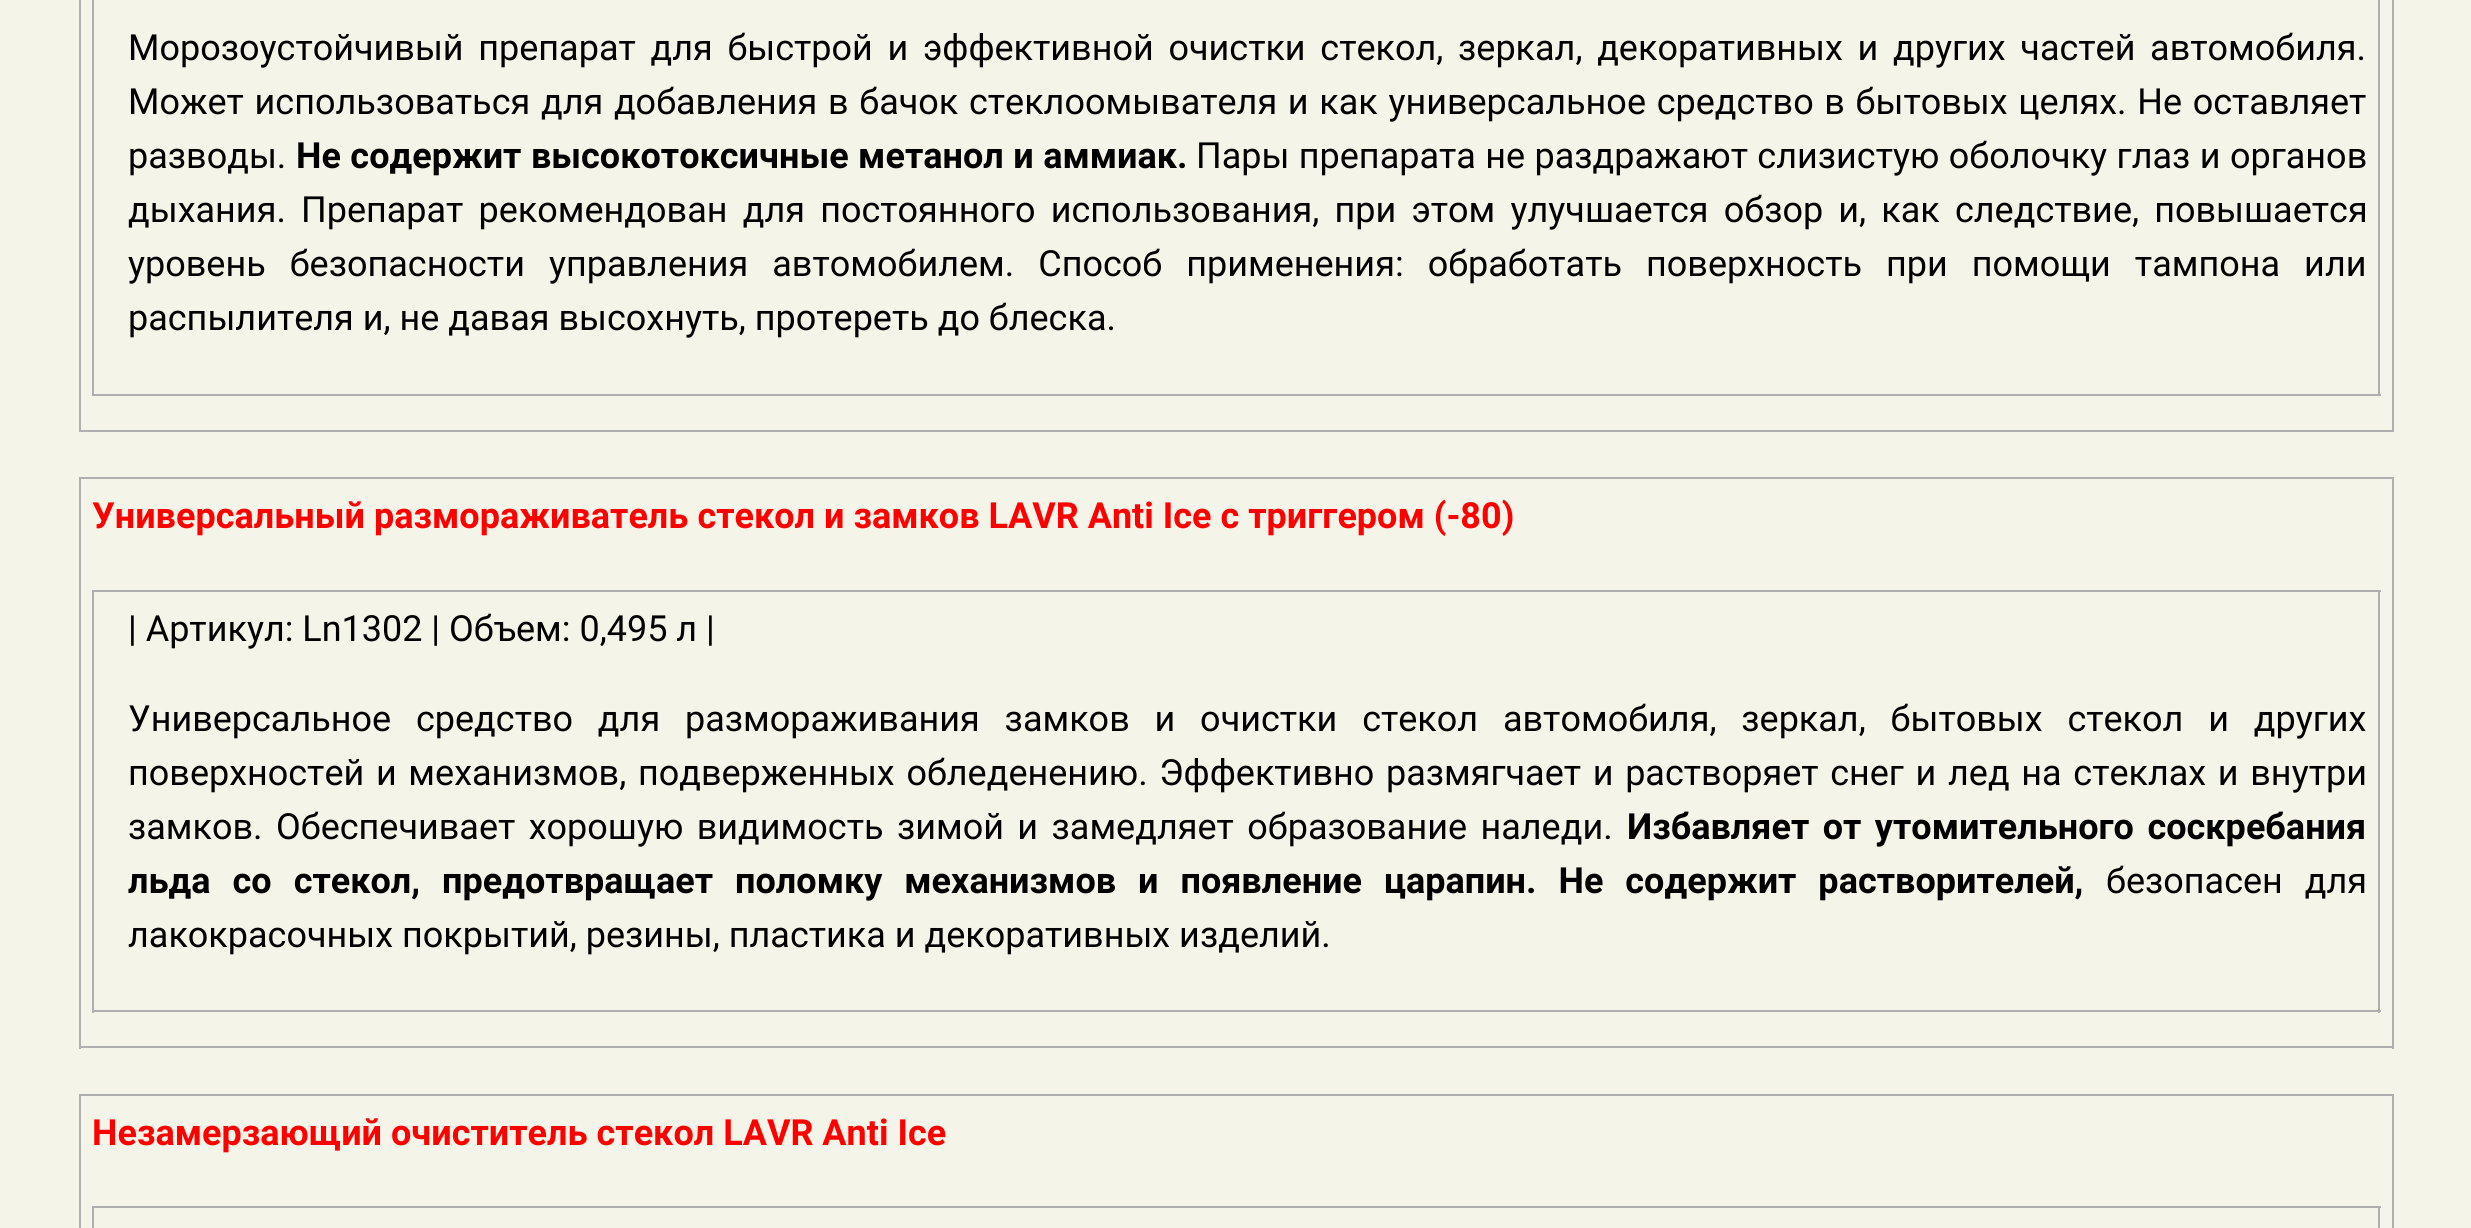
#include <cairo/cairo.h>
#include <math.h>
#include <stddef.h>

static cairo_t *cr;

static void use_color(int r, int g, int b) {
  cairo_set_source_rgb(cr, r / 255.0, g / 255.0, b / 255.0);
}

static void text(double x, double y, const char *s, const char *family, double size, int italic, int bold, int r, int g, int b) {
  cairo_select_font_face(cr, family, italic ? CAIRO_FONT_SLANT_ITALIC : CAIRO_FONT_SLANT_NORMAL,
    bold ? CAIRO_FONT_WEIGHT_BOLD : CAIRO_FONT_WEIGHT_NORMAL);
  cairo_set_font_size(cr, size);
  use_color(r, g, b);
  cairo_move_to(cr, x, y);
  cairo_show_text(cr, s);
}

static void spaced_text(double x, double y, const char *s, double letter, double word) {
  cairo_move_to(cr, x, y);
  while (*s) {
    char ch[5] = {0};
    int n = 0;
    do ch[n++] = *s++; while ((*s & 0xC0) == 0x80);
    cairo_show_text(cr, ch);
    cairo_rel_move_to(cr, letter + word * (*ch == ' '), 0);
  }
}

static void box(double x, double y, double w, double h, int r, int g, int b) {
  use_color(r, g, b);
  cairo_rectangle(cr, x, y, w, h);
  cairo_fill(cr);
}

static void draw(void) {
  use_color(245, 244, 232);
  cairo_paint(cr);
  box(2392, 0, 2, 432, 175, 175, 175);
  box(79, 430, 2315, 2, 175, 175, 175);
  box(79, 0, 2, 432, 175, 175, 175);
  box(2378, 0, 2, 396, 175, 175, 175);
  box(92, 394, 2289, 2, 175, 175, 175);
  box(92, 0, 2, 396, 175, 175, 175);
  box(79, 477, 2315, 2, 175, 175, 175);
  box(2392, 477, 2, 572, 175, 175, 175);
  box(79, 1046, 2315, 2, 175, 175, 175);
  box(79, 477, 2, 572, 175, 175, 175);
  box(92, 590, 2289, 2, 175, 175, 175);
  box(2378, 590, 2, 423, 175, 175, 175);
  box(92, 1010, 2289, 2, 175, 175, 175);
  box(92, 590, 2, 423, 175, 175, 175);
  box(79, 1094, 2315, 2, 175, 175, 175);
  box(2392, 1094, 2, 134, 175, 175, 175);
  box(79, 1094, 2, 134, 175, 175, 175);
  box(92, 1206, 2289, 2, 175, 175, 175);
  box(2378, 1206, 2, 22, 175, 175, 175);
  box(92, 1206, 2, 22, 175, 175, 175);
  cairo_select_font_face(cr, "Roboto", CAIRO_FONT_SLANT_NORMAL, CAIRO_FONT_WEIGHT_NORMAL);
  cairo_set_font_size(cr, 36);
  use_color(0, 0, 0);
  spaced_text(128, 60, "Морозоустойчивый препарат для быстрой и эффективной очистки стекол, зеркал, декоративных и других частей автомобиля.", 0, 5.75);
  spaced_text(128, 114, "Может использоваться для добавления в бачок стеклоомывателя и как универсальное средство в бытовых целях. Не оставляет", 0, 1.75);
  text(128, 168, "разводы.", "Roboto", 36, 0, 0, 0, 0, 0);
  cairo_select_font_face(cr, "Roboto", CAIRO_FONT_SLANT_NORMAL, CAIRO_FONT_WEIGHT_BOLD);
  spaced_text(296, 168, "Не содержит высокотоксичные метанол и аммиак.", 0, 0.5);
  cairo_select_font_face(cr, "Roboto", CAIRO_FONT_SLANT_NORMAL, CAIRO_FONT_WEIGHT_NORMAL);
  spaced_text(1196, 168, "Пары препарата не раздражают слизистую оболочку глаз и органов", 0, 0.5);
  spaced_text(128, 222, "дыхания. Препарат рекомендован для постоянного использования, при этом улучшается обзор и, как следствие, повышается", 0, 6.25);
  spaced_text(128, 276, "уровень безопасности управления автомобилем. Способ применения: обработать поверхность при помощи тампона или", 0, 15.1);
  text(128, 330, "распылителя и, не давая высохнуть, протереть до блеска.", "Roboto", 36, 0, 0, 0, 0, 0);
  text(92, 528, "Универсальный размораживатель стекол и замков LAVR Anti Ice с триггером (-80)", "Roboto", 36, 0, 1, 255, 0, 0);
  text(128, 641, "| Артикул: Ln1302 | Объем: 0,495 л |", "Roboto", 36, 0, 0, 0, 0, 0);
  spaced_text(128, 731, "Универсальное средство для размораживания замков и очистки стекол автомобиля, зеркал, бытовых стекол и других", 0, 15.9);
  spaced_text(128, 785, "поверхностей и механизмов, подверженных обледенению. Эффективно размягчает и растворяет снег и лед на стеклах и внутри", 0, 2.75);
  spaced_text(128, 839, "замков. Обеспечивает хорошую видимость зимой и замедляет образование наледи.", 0, 4.5);
  cairo_select_font_face(cr, "Roboto", CAIRO_FONT_SLANT_NORMAL, CAIRO_FONT_WEIGHT_BOLD);
  spaced_text(1627, 839, "Избавляет от утомительного соскребания", 0, 4.5);
  spaced_text(128, 893, "льда со стекол, предотвращает поломку механизмов и появление царапин. Не содержит растворителей,", 0, 13);
  cairo_select_font_face(cr, "Roboto", CAIRO_FONT_SLANT_NORMAL, CAIRO_FONT_WEIGHT_NORMAL);
  spaced_text(2106, 893, "безопасен для", 0, 13);
  text(128, 947, "лакокрасочных покрытий, резины, пластика и декоративных изделий.", "Roboto", 36, 0, 0, 0, 0, 0);
  text(92, 1145, "Незамерзающий очиститель стекол LAVR Anti Ice", "Roboto", 36, 0, 1, 255, 0, 0);
}

int main(void) {
  cairo_surface_t *surface = cairo_image_surface_create(CAIRO_FORMAT_RGB24, 2471, 1228);
  cr = cairo_create(surface);
  cairo_font_options_t *options = cairo_font_options_create();
  cairo_font_options_set_hint_metrics(options, CAIRO_HINT_METRICS_OFF);
  cairo_font_options_set_hint_style(options, CAIRO_HINT_STYLE_NONE);
  cairo_set_font_options(cr, options);
  cairo_set_miter_limit(cr, 4);
  draw();
  cairo_surface_write_to_png(surface, "out.png");
  cairo_font_options_destroy(options);
  cairo_destroy(cr);
  cairo_surface_destroy(surface);
  return 0;
}
